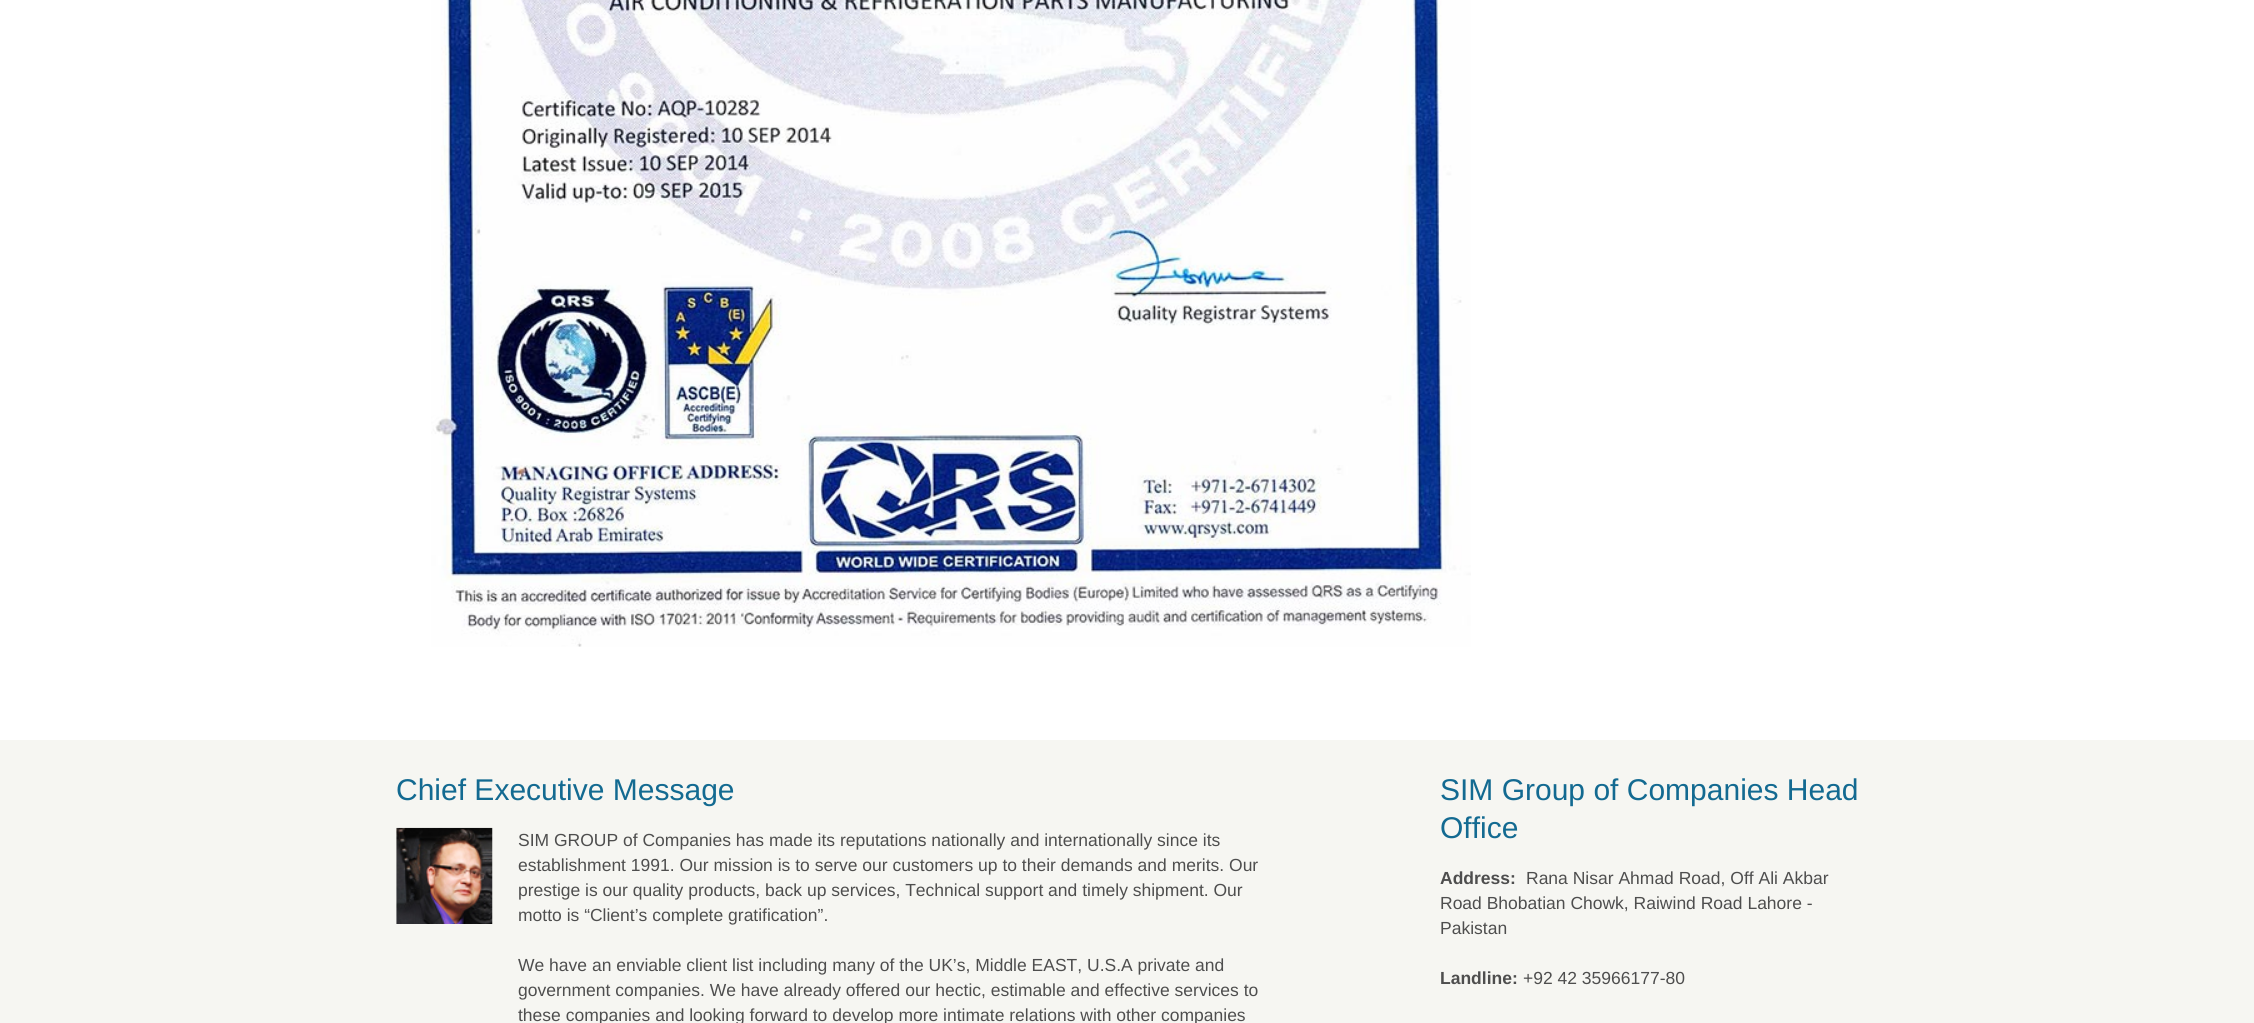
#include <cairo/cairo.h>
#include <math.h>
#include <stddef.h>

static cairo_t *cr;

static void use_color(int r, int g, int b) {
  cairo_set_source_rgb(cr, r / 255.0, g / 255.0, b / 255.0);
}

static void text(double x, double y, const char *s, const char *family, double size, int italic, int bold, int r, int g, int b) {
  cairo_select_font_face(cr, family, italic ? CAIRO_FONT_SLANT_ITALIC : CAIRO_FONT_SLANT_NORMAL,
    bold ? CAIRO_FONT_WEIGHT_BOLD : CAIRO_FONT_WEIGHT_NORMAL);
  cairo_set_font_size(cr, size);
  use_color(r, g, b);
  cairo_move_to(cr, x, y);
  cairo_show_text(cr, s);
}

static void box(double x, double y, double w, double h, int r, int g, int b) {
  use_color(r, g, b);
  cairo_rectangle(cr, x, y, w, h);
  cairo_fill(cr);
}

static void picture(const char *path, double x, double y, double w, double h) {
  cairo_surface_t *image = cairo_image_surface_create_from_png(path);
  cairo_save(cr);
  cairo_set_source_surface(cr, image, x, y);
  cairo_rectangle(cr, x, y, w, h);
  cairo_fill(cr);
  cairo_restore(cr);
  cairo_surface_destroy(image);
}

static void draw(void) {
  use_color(255, 255, 255);
  cairo_paint(cr);
  picture("img_01.png", 431, 0, 1040, 647);
  box(0, 740, 2254, 283, 246, 246, 242);
  picture("img_02.png", 396, 827, 97, 97);
  text(396, 800, "Chief Executive Message", "Liberation Sans", 30, 0, 0, 19, 106, 145);
  text(518, 846, "SIM GROUP of Companies has made its reputations nationally and internationally since its", "Liberation Sans", 17.5, 0, 0, 78, 78, 78);
  text(518, 871, "establishment 1991. Our mission is to serve our customers up to their demands and merits. Our", "Liberation Sans", 17.5, 0, 0, 78, 78, 78);
  text(518, 896, "prestige is our quality products, back up services, Technical support and timely shipment. Our", "Liberation Sans", 17.5, 0, 0, 78, 78, 78);
  text(518, 921, "motto is “Client’s complete gratification”.", "Liberation Sans", 17.5, 0, 0, 78, 78, 78);
  text(518, 971, "We have an enviable client list including many of the UK’s, Middle EAST, U.S.A private and", "Liberation Sans", 17.5, 0, 0, 78, 78, 78);
  text(518, 996, "government companies. We have already offered our hectic, estimable and effective services to", "Liberation Sans", 17.5, 0, 0, 78, 78, 78);
  text(518, 1021, "these companies and looking forward to develop more intimate relations with other companies", "Liberation Sans", 17.5, 0, 0, 78, 78, 78);
  text(1440, 800, "SIM Group of Companies Head", "Liberation Sans", 30, 0, 0, 19, 106, 145);
  text(1440, 838, "Office", "Liberation Sans", 30, 0, 0, 19, 106, 145);
  text(1440, 884, "Address:", "Liberation Sans", 17.5, 0, 1, 78, 78, 78);
  text(1526, 884, "Rana Nisar Ahmad Road, Off Ali Akbar", "Liberation Sans", 17.5, 0, 0, 78, 78, 78);
  text(1440, 909, "Road Bhobatian Chowk, Raiwind Road Lahore -", "Liberation Sans", 17.5, 0, 0, 78, 78, 78);
  text(1440, 934, "Pakistan", "Liberation Sans", 17.5, 0, 0, 78, 78, 78);
  text(1440, 984, "Landline:", "Liberation Sans", 17.5, 0, 1, 78, 78, 78);
  text(1523, 984, "+92 42 35966177-80", "Liberation Sans", 17.5, 0, 0, 78, 78, 78);
}

int main(void) {
  cairo_surface_t *surface = cairo_image_surface_create(CAIRO_FORMAT_RGB24, 2254, 1023);
  cr = cairo_create(surface);
  cairo_font_options_t *options = cairo_font_options_create();
  cairo_font_options_set_hint_metrics(options, CAIRO_HINT_METRICS_OFF);
  cairo_font_options_set_hint_style(options, CAIRO_HINT_STYLE_NONE);
  cairo_set_font_options(cr, options);
  cairo_set_miter_limit(cr, 4);
  draw();
  cairo_surface_write_to_png(surface, "out.png");
  cairo_font_options_destroy(options);
  cairo_destroy(cr);
  cairo_surface_destroy(surface);
  return 0;
}
